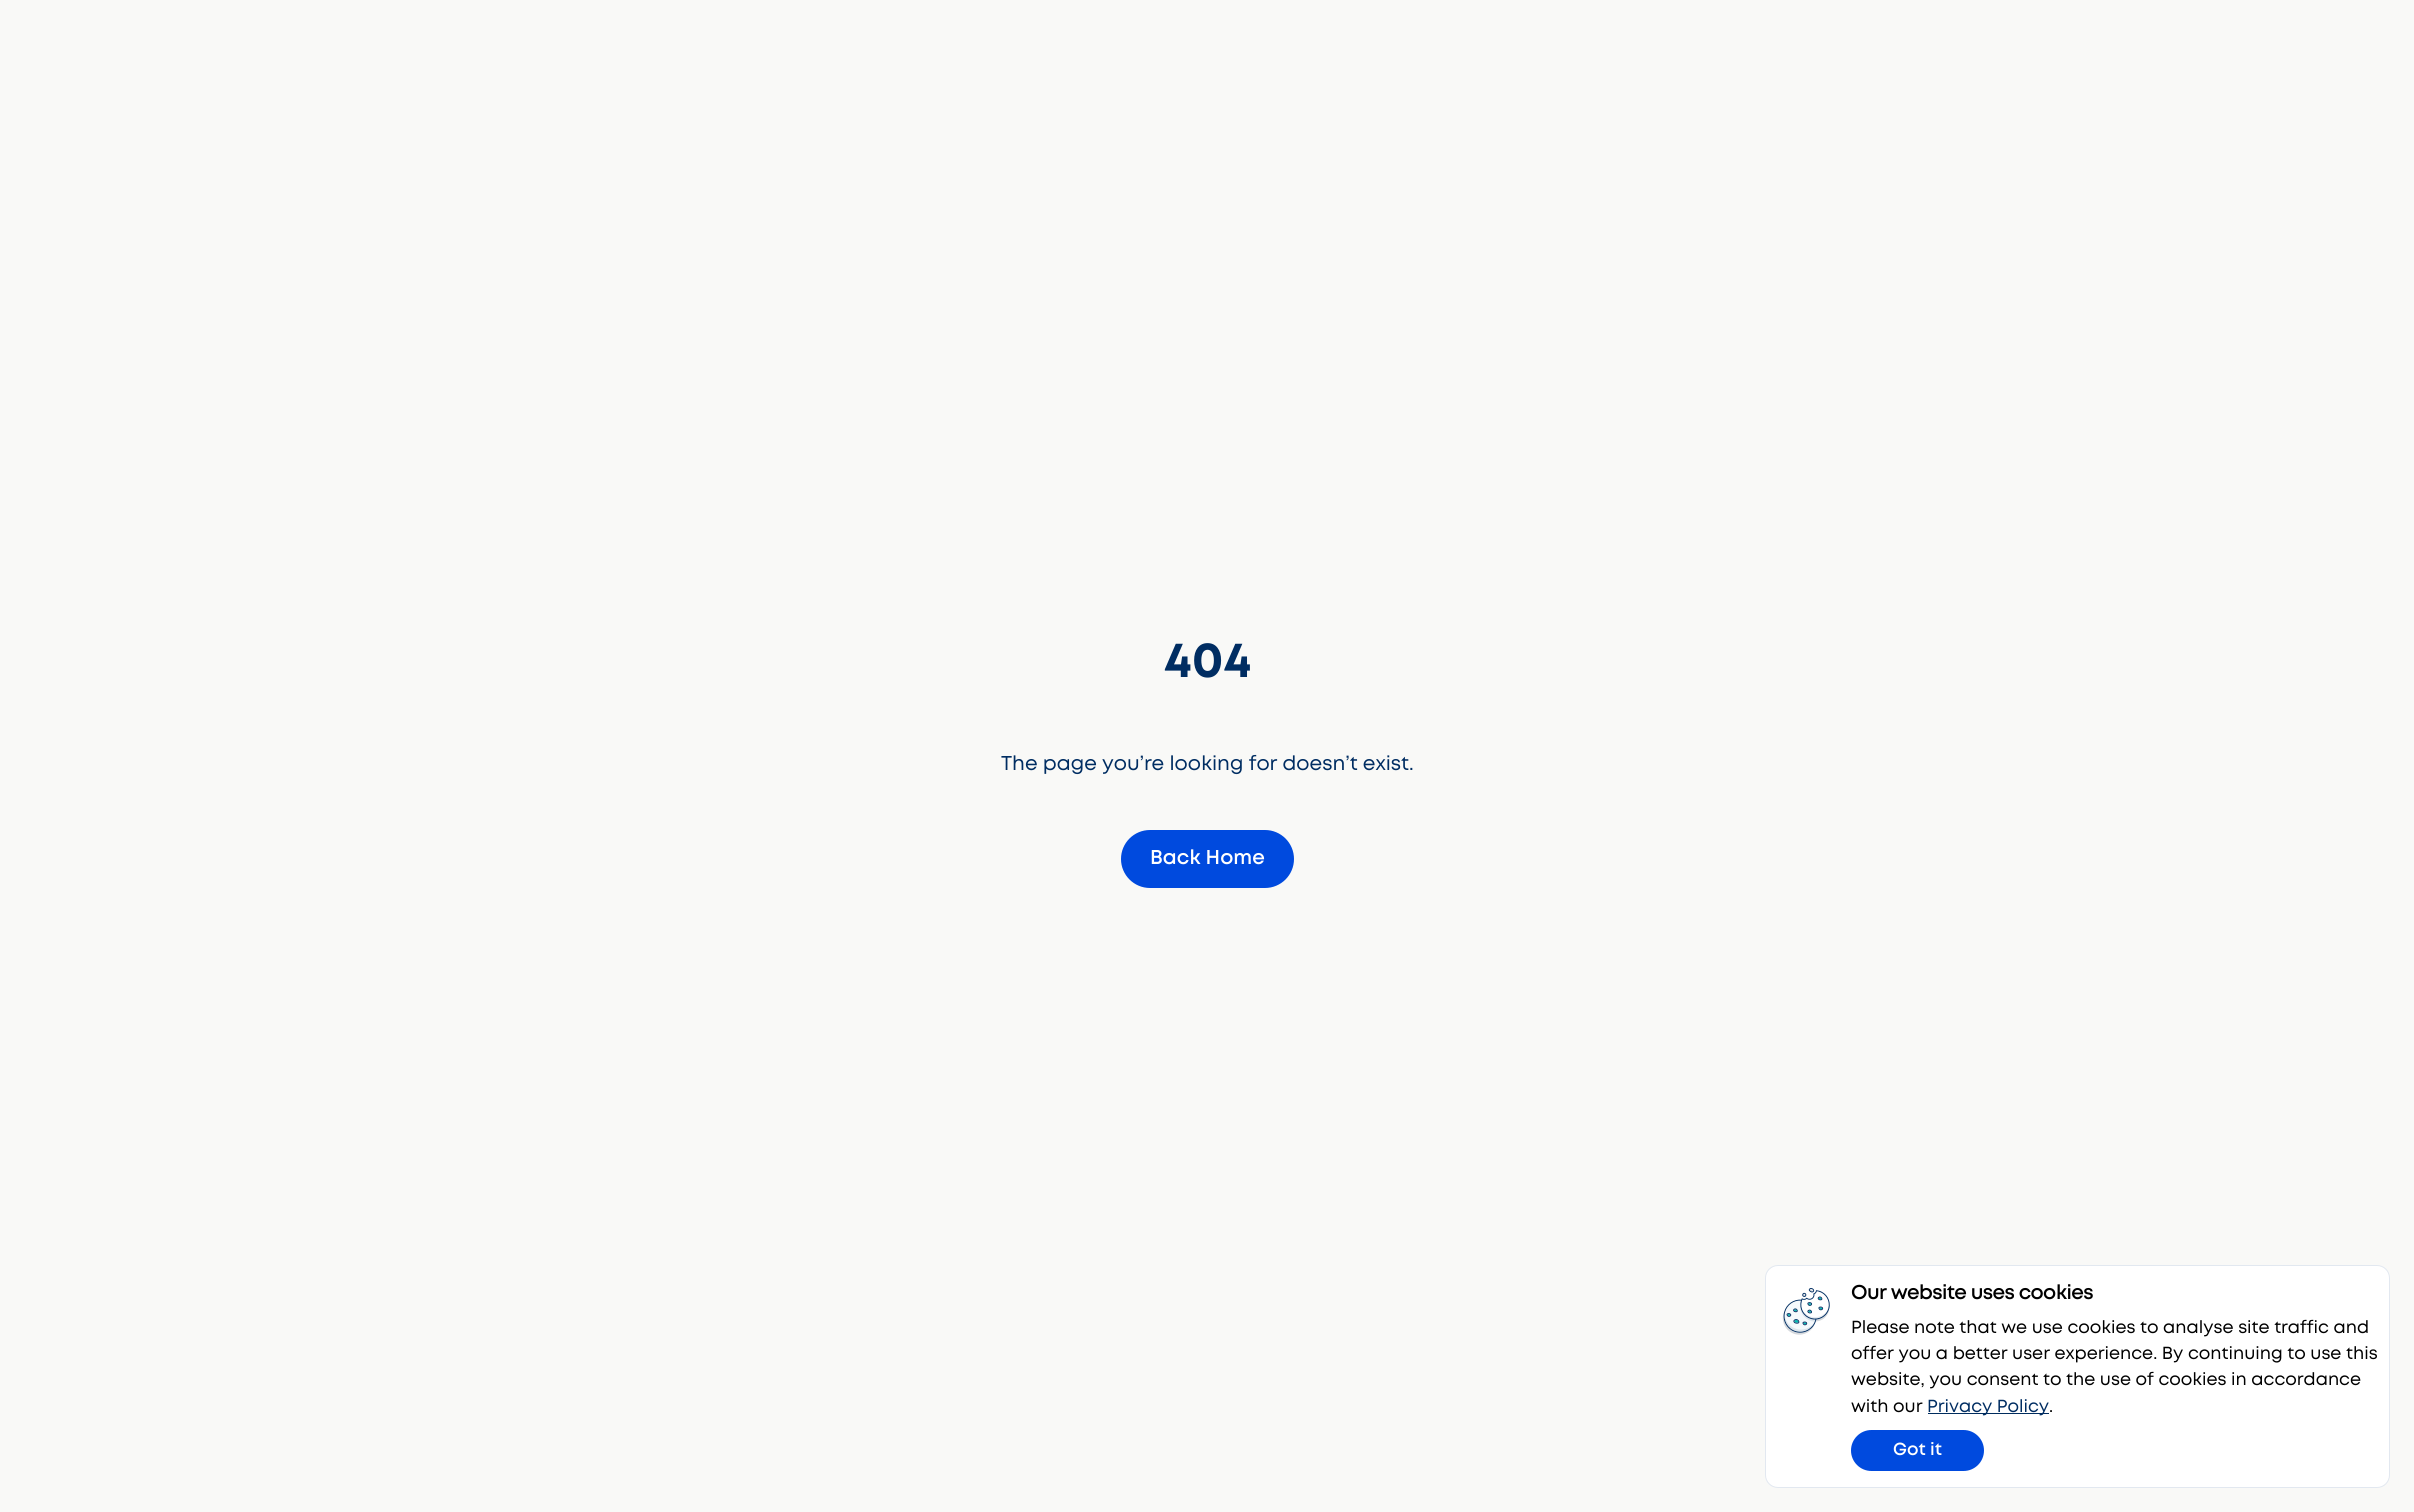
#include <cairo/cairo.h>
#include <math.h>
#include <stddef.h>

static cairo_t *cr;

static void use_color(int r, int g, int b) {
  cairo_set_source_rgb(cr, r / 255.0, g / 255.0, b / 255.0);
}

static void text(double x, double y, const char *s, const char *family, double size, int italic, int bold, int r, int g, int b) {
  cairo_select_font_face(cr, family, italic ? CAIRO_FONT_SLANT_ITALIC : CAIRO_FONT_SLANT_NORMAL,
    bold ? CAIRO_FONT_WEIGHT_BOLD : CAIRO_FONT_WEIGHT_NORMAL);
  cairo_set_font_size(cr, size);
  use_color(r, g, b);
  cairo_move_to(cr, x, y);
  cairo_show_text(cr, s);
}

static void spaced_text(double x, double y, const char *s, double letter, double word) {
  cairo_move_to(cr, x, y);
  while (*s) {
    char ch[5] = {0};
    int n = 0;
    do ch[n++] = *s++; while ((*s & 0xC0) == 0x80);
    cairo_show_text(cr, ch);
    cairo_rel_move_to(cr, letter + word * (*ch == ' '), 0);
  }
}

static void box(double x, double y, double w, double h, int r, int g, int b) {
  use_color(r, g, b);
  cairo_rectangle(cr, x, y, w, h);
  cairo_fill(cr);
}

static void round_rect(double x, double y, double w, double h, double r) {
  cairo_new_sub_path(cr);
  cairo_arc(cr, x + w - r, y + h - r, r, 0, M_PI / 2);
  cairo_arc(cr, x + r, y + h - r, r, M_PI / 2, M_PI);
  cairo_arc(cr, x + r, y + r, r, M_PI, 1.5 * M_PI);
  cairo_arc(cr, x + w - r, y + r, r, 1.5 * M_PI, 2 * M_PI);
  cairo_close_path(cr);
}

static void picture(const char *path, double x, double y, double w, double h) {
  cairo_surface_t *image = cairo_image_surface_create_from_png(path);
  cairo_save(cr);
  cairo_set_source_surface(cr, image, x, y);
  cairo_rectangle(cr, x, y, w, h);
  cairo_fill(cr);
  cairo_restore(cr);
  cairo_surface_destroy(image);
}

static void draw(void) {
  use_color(249, 249, 247);
  cairo_paint(cr);
  use_color(0, 74, 222);
  round_rect(1123, 832, 169, 54, 27);
  cairo_fill_preserve(cr);
  cairo_set_line_width(cr, 4);
  cairo_stroke(cr);
  use_color(255, 255, 255);
  round_rect(1765.5, 1265.5, 624, 222, 12.5);
  cairo_fill_preserve(cr);
  use_color(226, 232, 240);
  cairo_set_line_width(cr, 1);
  cairo_stroke(cr);
  picture("img_01.png", 1782, 1288, 48, 47);
  box(1928, 1413, 121, 1, 0, 44, 94);
  use_color(0, 74, 222);
  round_rect(1851, 1430, 133, 41, 20.5);
  cairo_fill(cr);
  text(1164, 677, "404", "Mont", 50, 0, 1, 0, 45, 98);
  text(1001, 770, "The page you’re looking for doesn’t exist.", "Mont", 20, 0, 0, 0, 45, 98);
  text(1150, 864, "Back Home", "Mont SemiBold", 20, 0, 0, 255, 255, 255);
  use_color(0, 0, 0);
  spaced_text(1851, 1299, "Our website uses cookies", -0.6, 0);
  text(1851, 1333, "Please note that we use cookies to analyse site traffic and", "Mont", 17.5, 0, 0, 0, 0, 0);
  text(1851, 1359, "offer you a better user experience. By continuing to use this", "Mont", 17.5, 0, 0, 0, 0, 0);
  text(1851, 1385, "website, you consent to the use of cookies in accordance", "Mont", 17.5, 0, 0, 0, 0, 0);
  text(1851, 1412, "with our", "Mont", 17.5, 0, 0, 0, 0, 0);
  text(1927, 1412, "Privacy Policy", "Mont", 17.5, 0, 0, 0, 45, 98);
  text(2049, 1412, ".", "Mont", 17.5, 0, 0, 0, 0, 0);
  text(1893, 1455, "Got it", "Mont SemiBold", 17.5, 0, 0, 255, 255, 255);
}

int main(void) {
  cairo_surface_t *surface = cairo_image_surface_create(CAIRO_FORMAT_RGB24, 2414, 1512);
  cr = cairo_create(surface);
  cairo_font_options_t *options = cairo_font_options_create();
  cairo_font_options_set_hint_metrics(options, CAIRO_HINT_METRICS_OFF);
  cairo_font_options_set_hint_style(options, CAIRO_HINT_STYLE_NONE);
  cairo_set_font_options(cr, options);
  cairo_set_miter_limit(cr, 4);
  draw();
  cairo_surface_write_to_png(surface, "out.png");
  cairo_font_options_destroy(options);
  cairo_destroy(cr);
  cairo_surface_destroy(surface);
  return 0;
}
